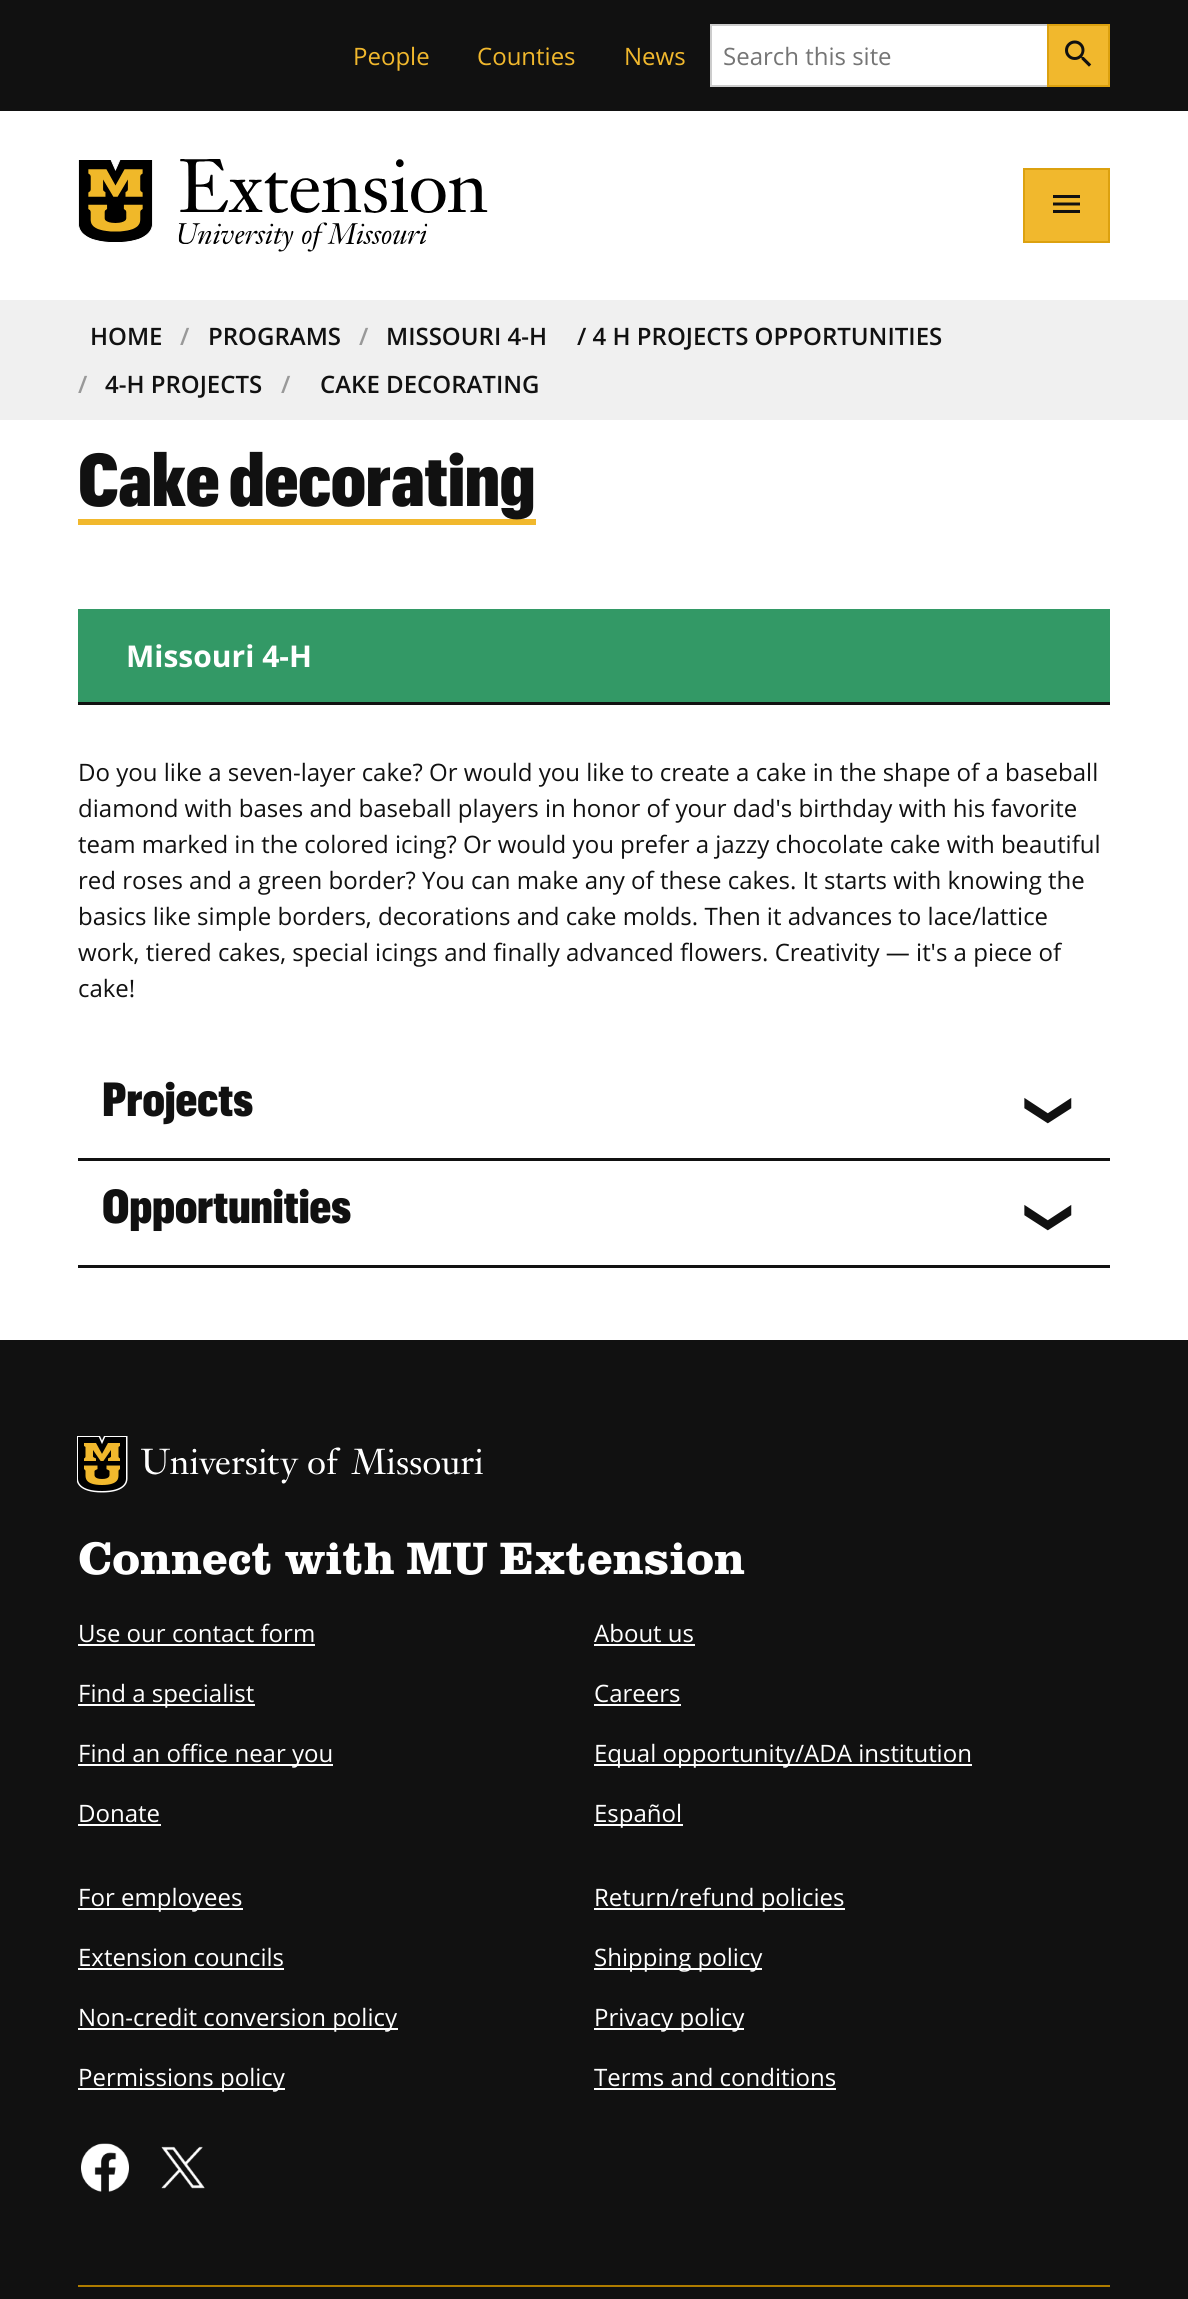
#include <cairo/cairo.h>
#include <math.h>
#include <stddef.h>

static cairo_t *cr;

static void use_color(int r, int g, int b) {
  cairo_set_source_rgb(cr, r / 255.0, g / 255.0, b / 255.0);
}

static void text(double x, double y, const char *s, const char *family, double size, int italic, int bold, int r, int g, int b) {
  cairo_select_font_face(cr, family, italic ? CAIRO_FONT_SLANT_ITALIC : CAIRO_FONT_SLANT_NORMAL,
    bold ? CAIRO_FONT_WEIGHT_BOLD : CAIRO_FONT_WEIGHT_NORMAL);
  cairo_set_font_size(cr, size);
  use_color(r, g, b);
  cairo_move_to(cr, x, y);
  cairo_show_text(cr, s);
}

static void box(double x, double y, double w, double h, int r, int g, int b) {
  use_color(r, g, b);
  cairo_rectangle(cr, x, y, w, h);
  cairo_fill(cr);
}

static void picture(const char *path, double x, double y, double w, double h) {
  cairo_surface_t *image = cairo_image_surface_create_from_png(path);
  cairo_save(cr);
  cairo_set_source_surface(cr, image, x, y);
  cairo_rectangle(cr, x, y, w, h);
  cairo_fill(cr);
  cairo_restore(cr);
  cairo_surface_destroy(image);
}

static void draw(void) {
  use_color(255, 255, 255);
  cairo_paint(cr);
  box(0, 0, 1188, 111, 17, 17, 17);
  use_color(255, 255, 255);
  cairo_rectangle(cr, 711, 25, 337, 61);
  cairo_fill_preserve(cr);
  use_color(204, 204, 204);
  cairo_stroke(cr);
  use_color(241, 184, 45);
  cairo_rectangle(cr, 1048, 25, 61, 61);
  cairo_fill_preserve(cr);
  use_color(220, 161, 15);
  cairo_stroke(cr);
  picture("img_01.png", 1065, 40, 27, 27);
  picture("img_02.png", 78, 160, 75, 83);
  picture("img_03.png", 180, 159, 308, 54);
  picture("img_04.png", 178, 222, 250, 30);
  use_color(241, 184, 45);
  cairo_rectangle(cr, 1024, 169, 85, 73);
  cairo_fill_preserve(cr);
  use_color(220, 161, 15);
  cairo_stroke(cr);
  picture("img_05.png", 1053, 195, 27, 18);
  box(0, 300, 1188, 120, 240, 240, 240);
  box(78, 519, 458, 6, 241, 184, 45);
  box(78, 609, 1032, 93, 51, 153, 102);
  box(78, 702, 1032, 3, 17, 17, 17);
  box(78, 1158, 1032, 3, 17, 17, 17);
  box(78, 1265, 1032, 3, 17, 17, 17);
  box(0, 1340, 1188, 959, 17, 17, 17);
  picture("img_06.png", 77, 1436, 51, 57);
  picture("img_07.png", 141, 1447, 342, 37);
  box(78, 1644, 237, 2, 255, 255, 255);
  box(78, 1704, 177, 2, 255, 255, 255);
  box(78, 1764, 255, 2, 255, 255, 255);
  box(78, 1824, 83, 2, 255, 255, 255);
  box(594, 1644, 101, 2, 255, 255, 255);
  box(594, 1704, 87, 2, 255, 255, 255);
  box(594, 1764, 378, 2, 255, 255, 255);
  box(594, 1824, 89, 2, 255, 255, 255);
  box(78, 1908, 165, 2, 255, 255, 255);
  box(78, 1968, 206, 2, 255, 255, 255);
  box(78, 2028, 320, 2, 255, 255, 255);
  box(78, 2088, 207, 2, 255, 255, 255);
  box(594, 1908, 251, 2, 255, 255, 255);
  box(594, 1968, 168, 2, 255, 255, 255);
  box(594, 2028, 150, 2, 255, 255, 255);
  box(594, 2088, 242, 2, 255, 255, 255);
  picture("img_08.png", 81, 2143, 48, 49);
  picture("img_09.png", 161, 2146, 44, 43);
  box(78, 2285, 1032, 2, 175, 124, 0);
  text(353, 65, "People", "Open Sans", 24, 0, 0, 241, 184, 45);
  text(477, 65, "Counties", "Open Sans", 24, 0, 0, 241, 184, 45);
  text(624, 65, "News", "Open Sans", 24, 0, 0, 241, 184, 45);
  text(723, 65, "Search this site", "Open Sans", 24, 0, 0, 117, 117, 117);
  text(90, 345, "HOME", "Open Sans SemiBold", 24, 0, 0, 17, 17, 17);
  text(180, 345, "/", "Open Sans SemiBold", 24, 0, 0, 153, 153, 153);
  text(208, 345, "PROGRAMS", "Open Sans SemiBold", 24, 0, 0, 17, 17, 17);
  text(359, 345, "/", "Open Sans SemiBold", 24, 0, 0, 153, 153, 153);
  text(386, 345, "MISSOURI 4-H", "Open Sans SemiBold", 24, 0, 0, 17, 17, 17);
  text(577, 345, "/ 4 H PROJECTS OPPORTUNITIES", "Open Sans SemiBold", 24, 0, 0, 17, 17, 17);
  text(78, 393, "/", "Open Sans SemiBold", 24, 0, 0, 153, 153, 153);
  text(105, 393, "4-H PROJECTS", "Open Sans SemiBold", 24, 0, 0, 17, 17, 17);
  text(281, 393, "/", "Open Sans SemiBold", 24, 0, 0, 153, 153, 153);
  text(320, 393, "CAKE DECORATING", "Open Sans SemiBold", 24, 0, 0, 17, 17, 17);
  text(78, 506, "Cake decorating", "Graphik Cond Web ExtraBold", 73.25, 0, 0, 17, 17, 17);
  text(126, 667, "Missouri 4-H", "Open Sans", 30, 0, 1, 255, 255, 255);
  text(78, 781, "Do you like a seven-layer cake? Or would you like to create a cake in the shape of a baseball", "Open Sans", 24, 0, 0, 17, 17, 17);
  text(78, 817, "diamond with bases and baseball players in honor of your dad's birthday with his favorite", "Open Sans", 24, 0, 0, 17, 17, 17);
  text(78, 853, "team marked in the colored icing? Or would you prefer a jazzy chocolate cake with beautiful", "Open Sans", 24, 0, 0, 17, 17, 17);
  text(78, 889, "red roses and a green border? You can make any of these cakes. It starts with knowing the", "Open Sans", 24, 0, 0, 17, 17, 17);
  text(78, 925, "basics like simple borders, decorations and cake molds. Then it advances to lace/lattice", "Open Sans", 24, 0, 0, 17, 17, 17);
  text(78, 961, "work, tiered cakes, special icings and finally advanced flowers. Creativity — it's a piece of", "Open Sans", 24, 0, 0, 17, 17, 17);
  text(78, 997, "cake!", "Open Sans", 24, 0, 0, 17, 17, 17);
  text(102, 1116, "Projects", "Graphik Cond Web ExtraBold", 46.9, 0, 0, 17, 17, 17);
  cairo_save(cr);
  cairo_translate(cr, 1060, 1130);
  cairo_rotate(cr, -90 * M_PI / 180);
  text(0, 0, "❮", "DejaVu Sans", 46.9, 0, 0, 17, 17, 17);
  cairo_restore(cr);
  text(102, 1223, "Opportunities", "Graphik Cond Web ExtraBold", 46.9, 0, 0, 17, 17, 17);
  cairo_save(cr);
  cairo_translate(cr, 1060, 1237);
  cairo_rotate(cr, -90 * M_PI / 180);
  text(0, 0, "❮", "DejaVu Sans", 46.9, 0, 0, 17, 17, 17);
  cairo_restore(cr);
  text(78, 1574, "Connect with MU Extension", "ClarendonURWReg", 46.9, 0, 0, 255, 255, 255);
  text(78, 1642, "Use our contact form", "Open Sans", 24, 0, 0, 255, 255, 255);
  text(78, 1702, "Find a specialist", "Open Sans", 24, 0, 0, 255, 255, 255);
  text(78, 1762, "Find an office near you", "Open Sans", 24, 0, 0, 255, 255, 255);
  text(78, 1822, "Donate", "Open Sans", 24, 0, 0, 255, 255, 255);
  text(594, 1642, "About us", "Open Sans", 24, 0, 0, 255, 255, 255);
  text(594, 1702, "Careers", "Open Sans", 24, 0, 0, 255, 255, 255);
  text(594, 1762, "Equal opportunity/ADA institution", "Open Sans", 24, 0, 0, 255, 255, 255);
  text(594, 1822, "Español", "Open Sans", 24, 0, 0, 255, 255, 255);
  text(78, 1906, "For employees", "Open Sans", 24, 0, 0, 255, 255, 255);
  text(78, 1966, "Extension councils", "Open Sans", 24, 0, 0, 255, 255, 255);
  text(78, 2026, "Non-credit conversion policy", "Open Sans", 24, 0, 0, 255, 255, 255);
  text(78, 2086, "Permissions policy", "Open Sans", 24, 0, 0, 255, 255, 255);
  text(594, 1906, "Return/refund policies", "Open Sans", 24, 0, 0, 255, 255, 255);
  text(594, 1966, "Shipping policy", "Open Sans", 24, 0, 0, 255, 255, 255);
  text(594, 2026, "Privacy policy", "Open Sans", 24, 0, 0, 255, 255, 255);
  text(594, 2086, "Terms and conditions", "Open Sans", 24, 0, 0, 255, 255, 255);
}

int main(void) {
  cairo_surface_t *surface = cairo_image_surface_create(CAIRO_FORMAT_RGB24, 1188, 2299);
  cr = cairo_create(surface);
  cairo_font_options_t *options = cairo_font_options_create();
  cairo_font_options_set_hint_metrics(options, CAIRO_HINT_METRICS_OFF);
  cairo_font_options_set_hint_style(options, CAIRO_HINT_STYLE_NONE);
  cairo_set_font_options(cr, options);
  cairo_set_miter_limit(cr, 4);
  draw();
  cairo_surface_write_to_png(surface, "out.png");
  cairo_font_options_destroy(options);
  cairo_destroy(cr);
  cairo_surface_destroy(surface);
  return 0;
}
